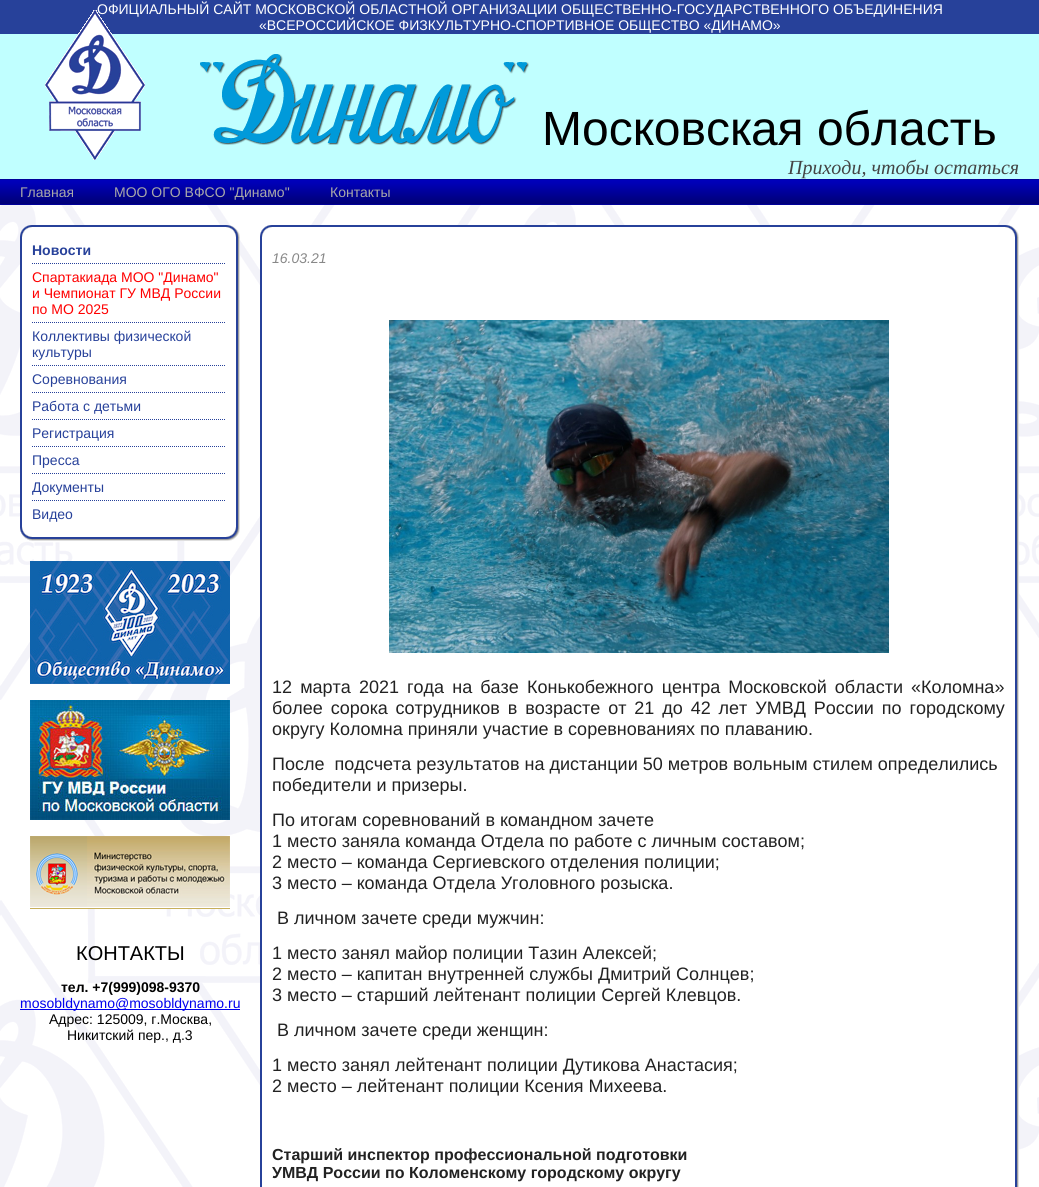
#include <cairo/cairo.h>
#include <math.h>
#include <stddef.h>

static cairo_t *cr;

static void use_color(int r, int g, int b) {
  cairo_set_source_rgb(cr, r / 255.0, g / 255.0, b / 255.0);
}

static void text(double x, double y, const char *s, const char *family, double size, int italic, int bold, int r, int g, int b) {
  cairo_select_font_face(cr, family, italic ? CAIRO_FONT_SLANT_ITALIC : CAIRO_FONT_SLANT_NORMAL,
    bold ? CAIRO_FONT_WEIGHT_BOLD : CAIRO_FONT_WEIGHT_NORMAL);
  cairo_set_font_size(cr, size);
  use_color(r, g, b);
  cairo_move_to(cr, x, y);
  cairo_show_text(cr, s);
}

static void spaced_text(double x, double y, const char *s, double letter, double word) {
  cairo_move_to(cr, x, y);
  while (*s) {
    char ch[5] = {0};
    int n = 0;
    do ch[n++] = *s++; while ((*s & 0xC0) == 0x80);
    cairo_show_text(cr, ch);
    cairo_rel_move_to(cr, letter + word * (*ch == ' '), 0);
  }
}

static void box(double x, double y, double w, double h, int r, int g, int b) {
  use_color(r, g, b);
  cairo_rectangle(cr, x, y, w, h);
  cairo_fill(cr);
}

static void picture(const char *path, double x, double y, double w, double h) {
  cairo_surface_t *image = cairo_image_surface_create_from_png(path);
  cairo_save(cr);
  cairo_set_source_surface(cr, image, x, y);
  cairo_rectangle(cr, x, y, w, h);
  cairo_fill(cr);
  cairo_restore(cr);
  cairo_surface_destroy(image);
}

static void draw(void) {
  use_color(255, 255, 255);
  cairo_paint(cr);
  picture("img_01.png", 0, 205, 1039, 982);
  box(0, 0, 1039, 34, 39, 65, 154);
  box(0, 34, 1039, 145, 192, 255, 255);
  picture("img_03.png", 200, 54, 329, 91);
  box(0, 179, 1039, 26, 0, 0, 153);
  picture("img_04.png", 0, 180, 1039, 24);
  picture("img_05.png", 20, 225, 12, 12);
  box(32, 227, 194, 10, 255, 255, 255);
  box(32, 225, 194, 2, 39, 65, 154);
  picture("img_06.png", 226, 225, 14, 12);
  box(22, 237, 10, 279, 255, 255, 255);
  box(20, 237, 2, 290, 39, 65, 154);
  box(32, 237, 169, 290, 255, 255, 255);
  cairo_new_path(cr);
  cairo_move_to(cr, 32, 263.5);
  cairo_line_to(cr, 226, 263.5);
  use_color(39, 65, 154);
  cairo_set_line_width(cr, 1);
  cairo_set_dash(cr, (double[]){1, 1}, 2, 0);
  cairo_stroke(cr);
  cairo_new_path(cr);
  cairo_move_to(cr, 32, 322.5);
  cairo_line_to(cr, 226, 322.5);
  cairo_stroke(cr);
  cairo_new_path(cr);
  cairo_move_to(cr, 32, 365.5);
  cairo_line_to(cr, 226, 365.5);
  cairo_stroke(cr);
  cairo_new_path(cr);
  cairo_move_to(cr, 32, 392.5);
  cairo_line_to(cr, 226, 392.5);
  cairo_stroke(cr);
  cairo_new_path(cr);
  cairo_move_to(cr, 32, 419.5);
  cairo_line_to(cr, 226, 419.5);
  cairo_stroke(cr);
  cairo_new_path(cr);
  cairo_move_to(cr, 32, 446.5);
  cairo_line_to(cr, 226, 446.5);
  cairo_stroke(cr);
  cairo_new_path(cr);
  cairo_move_to(cr, 32, 473.5);
  cairo_line_to(cr, 226, 473.5);
  cairo_stroke(cr);
  cairo_new_path(cr);
  cairo_move_to(cr, 32, 500.5);
  cairo_line_to(cr, 226, 500.5);
  cairo_stroke(cr);
  box(228, 237, 8, 12, 255, 255, 255);
  picture("img_07.png", 236, 237, 4, 290);
  picture("img_08.png", 20, 527, 12, 14);
  box(177, 527, 8, 10, 255, 255, 255);
  picture("img_09.png", 32, 537, 194, 4);
  picture("img_10.png", 226, 527, 14, 14);
  picture("img_11.png", 30, 561, 200, 123);
  picture("img_12.png", 30, 700, 200, 120);
  picture("img_13.png", 30, 836, 200, 73);
  box(20, 1009, 220, 1, 0, 0, 238);
  picture("img_14.png", 260, 225, 12, 12);
  box(303, 227, 702, 10, 255, 255, 255);
  box(272, 225, 733, 2, 39, 65, 154);
  picture("img_06.png", 1005, 225, 14, 12);
  box(262, 274, 10, 826, 255, 255, 255);
  box(260, 237, 2, 950, 39, 65, 154);
  box(272, 237, 733, 950, 255, 255, 255);
  picture("img_15.png", 389, 320, 500, 333);
  box(1005, 258, 10, 893, 255, 255, 255);
  picture("img_16.png", 1015, 237, 4, 950);
  text(97, 14, "ОФИЦИАЛЬНЫЙ САЙТ МОСКОВСКОЙ ОБЛАСТНОЙ ОРГАНИЗАЦИИ ОБЩЕСТВЕННО-ГОСУДАРСТВЕННОГО ОБЪЕДИНЕНИЯ", "Liberation Sans", 14, 0, 0, 255, 255, 255);
  text(259, 30, "«ВСЕРОССИЙСКОЕ ФИЗКУЛЬТУРНО-СПОРТИВНОЕ ОБЩЕСТВО «ДИНАМО»", "Liberation Sans", 14, 0, 0, 255, 255, 255);
  picture("img_02.png", 45, 10, 100, 150);
  text(542, 145, "Московская область", "Liberation Sans", 48, 0, 0, 0, 0, 0);
  text(788, 174, "Приходи, чтобы остаться", "Liberation Serif", 20, 1, 0, 68, 68, 68);
  text(20, 197, "Главная", "Liberation Sans", 14, 0, 0, 169, 169, 169);
  text(114, 197, "МОО ОГО ВФСО \"Динамо\"", "Liberation Sans", 14, 0, 0, 169, 169, 169);
  text(330, 197, "Контакты", "Liberation Sans", 14, 0, 0, 169, 169, 169);
  text(32, 255, "Новости", "Liberation Sans", 14, 0, 1, 39, 65, 154);
  text(32, 282, "Спартакиада МОО \"Динамо\"", "Liberation Sans", 14, 0, 0, 255, 0, 0);
  text(32, 298, "и Чемпионат ГУ МВД России", "Liberation Sans", 14, 0, 0, 255, 0, 0);
  text(32, 314, "по МО 2025", "Liberation Sans", 14, 0, 0, 255, 0, 0);
  text(32, 341, "Коллективы физической", "Liberation Sans", 14, 0, 0, 39, 65, 154);
  text(32, 357, "культуры", "Liberation Sans", 14, 0, 0, 39, 65, 154);
  text(32, 384, "Соревнования", "Liberation Sans", 14, 0, 0, 39, 65, 154);
  text(32, 411, "Работа с детьми", "Liberation Sans", 14, 0, 0, 39, 65, 154);
  text(32, 438, "Регистрация", "Liberation Sans", 14, 0, 0, 39, 65, 154);
  text(32, 465, "Пресса", "Liberation Sans", 14, 0, 0, 39, 65, 154);
  text(32, 492, "Документы", "Liberation Sans", 14, 0, 0, 39, 65, 154);
  text(32, 519, "Видео", "Liberation Sans", 14, 0, 0, 39, 65, 154);
  text(76, 960, "КОНТАКТЫ", "Liberation Sans", 20, 0, 0, 0, 0, 0);
  text(61, 992, "тел. +7(999)098-9370", "Liberation Sans", 14, 0, 1, 0, 0, 0);
  text(20, 1008, "mosobldynamo@mosobldynamo.ru", "Liberation Sans", 14, 0, 0, 0, 0, 238);
  text(49, 1024, "Адрес: 125009, г.Москва,", "Liberation Sans", 14, 0, 0, 0, 0, 0);
  text(67, 1040, "Никитский пер., д.3", "Liberation Sans", 14, 0, 0, 0, 0, 0);
  text(272, 263, "16.03.21", "Liberation Sans", 14, 1, 0, 136, 136, 136);
  cairo_select_font_face(cr, "Liberation Sans", CAIRO_FONT_SLANT_NORMAL, CAIRO_FONT_WEIGHT_NORMAL);
  cairo_set_font_size(cr, 18);
  use_color(34, 34, 34);
  spaced_text(272, 693, "12 марта 2021 года на базе Конькобежного центра Московской области «Коломна»", 0, 3.1);
  spaced_text(272, 714, "более сорока сотрудников в возрасте от 21 до 42 лет УМВД России по городскому", 0, 2.9);
  text(272, 735, "округу Коломна приняли участие в соревнованиях по плаванию.", "Liberation Sans", 18, 0, 0, 34, 34, 34);
  text(272, 770, "После  подсчета результатов на дистанции 50 метров вольным стилем определились", "Liberation Sans", 18, 0, 0, 34, 34, 34);
  text(272, 791, "победители и призеры.", "Liberation Sans", 18, 0, 0, 34, 34, 34);
  text(272, 826, "По итогам соревнований в командном зачете", "Liberation Sans", 18, 0, 0, 34, 34, 34);
  text(272, 847, "1 место заняла команда Отдела по работе с личным составом;", "Liberation Sans", 18, 0, 0, 34, 34, 34);
  text(272, 868, "2 место – команда Сергиевского отделения полиции;", "Liberation Sans", 18, 0, 0, 34, 34, 34);
  text(272, 889, "3 место – команда Отдела Уголовного розыска.", "Liberation Sans", 18, 0, 0, 34, 34, 34);
  text(277, 924, "В личном зачете среди мужчин:", "Liberation Sans", 18, 0, 0, 34, 34, 34);
  text(272, 959, "1 место занял майор полиции Тазин Алексей;", "Liberation Sans", 18, 0, 0, 34, 34, 34);
  text(272, 980, "2 место – капитан внутренней службы Дмитрий Солнцев;", "Liberation Sans", 18, 0, 0, 34, 34, 34);
  text(272, 1001, "3 место – старший лейтенант полиции Сергей Клевцов.", "Liberation Sans", 18, 0, 0, 34, 34, 34);
  text(277, 1036, "В личном зачете среди женщин:", "Liberation Sans", 18, 0, 0, 34, 34, 34);
  text(272, 1071, "1 место занял лейтенант полиции Дутикова Анастасия;", "Liberation Sans", 18, 0, 0, 34, 34, 34);
  text(272, 1092, "2 место – лейтенант полиции Ксения Михеева.", "Liberation Sans", 18, 0, 0, 34, 34, 34);
  text(272, 1160, "Старший инспектор профессиональной подготовки", "Liberation Sans", 16, 0, 1, 34, 34, 34);
  text(272, 1178, "УМВД России по Коломенскому городскому округу", "Liberation Sans", 16, 0, 1, 34, 34, 34);
}

int main(void) {
  cairo_surface_t *surface = cairo_image_surface_create(CAIRO_FORMAT_RGB24, 1039, 1187);
  cr = cairo_create(surface);
  cairo_font_options_t *options = cairo_font_options_create();
  cairo_font_options_set_hint_metrics(options, CAIRO_HINT_METRICS_OFF);
  cairo_font_options_set_hint_style(options, CAIRO_HINT_STYLE_NONE);
  cairo_set_font_options(cr, options);
  cairo_set_miter_limit(cr, 4);
  draw();
  cairo_surface_write_to_png(surface, "out.png");
  cairo_font_options_destroy(options);
  cairo_destroy(cr);
  cairo_surface_destroy(surface);
  return 0;
}
